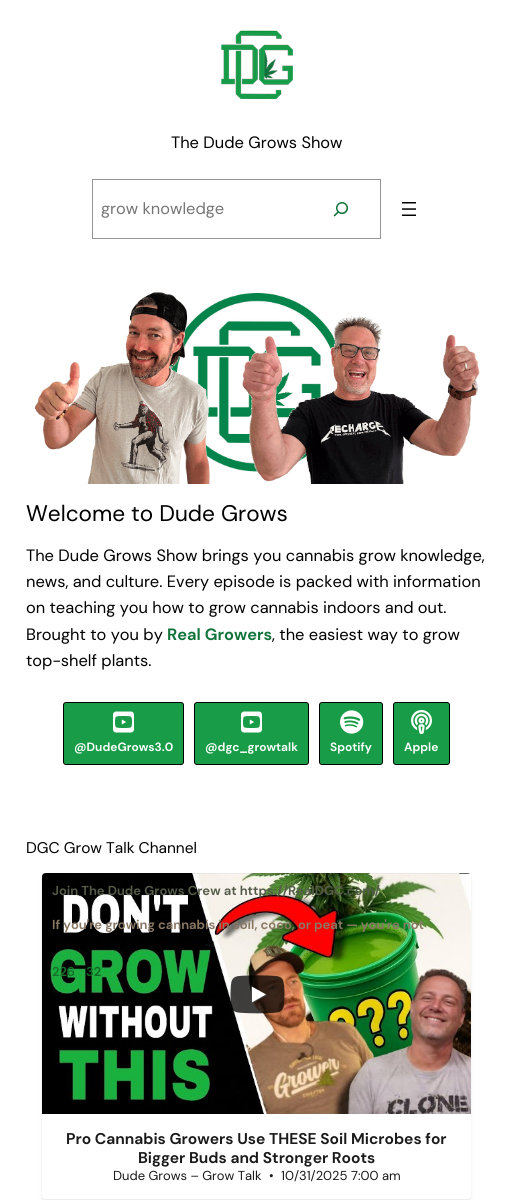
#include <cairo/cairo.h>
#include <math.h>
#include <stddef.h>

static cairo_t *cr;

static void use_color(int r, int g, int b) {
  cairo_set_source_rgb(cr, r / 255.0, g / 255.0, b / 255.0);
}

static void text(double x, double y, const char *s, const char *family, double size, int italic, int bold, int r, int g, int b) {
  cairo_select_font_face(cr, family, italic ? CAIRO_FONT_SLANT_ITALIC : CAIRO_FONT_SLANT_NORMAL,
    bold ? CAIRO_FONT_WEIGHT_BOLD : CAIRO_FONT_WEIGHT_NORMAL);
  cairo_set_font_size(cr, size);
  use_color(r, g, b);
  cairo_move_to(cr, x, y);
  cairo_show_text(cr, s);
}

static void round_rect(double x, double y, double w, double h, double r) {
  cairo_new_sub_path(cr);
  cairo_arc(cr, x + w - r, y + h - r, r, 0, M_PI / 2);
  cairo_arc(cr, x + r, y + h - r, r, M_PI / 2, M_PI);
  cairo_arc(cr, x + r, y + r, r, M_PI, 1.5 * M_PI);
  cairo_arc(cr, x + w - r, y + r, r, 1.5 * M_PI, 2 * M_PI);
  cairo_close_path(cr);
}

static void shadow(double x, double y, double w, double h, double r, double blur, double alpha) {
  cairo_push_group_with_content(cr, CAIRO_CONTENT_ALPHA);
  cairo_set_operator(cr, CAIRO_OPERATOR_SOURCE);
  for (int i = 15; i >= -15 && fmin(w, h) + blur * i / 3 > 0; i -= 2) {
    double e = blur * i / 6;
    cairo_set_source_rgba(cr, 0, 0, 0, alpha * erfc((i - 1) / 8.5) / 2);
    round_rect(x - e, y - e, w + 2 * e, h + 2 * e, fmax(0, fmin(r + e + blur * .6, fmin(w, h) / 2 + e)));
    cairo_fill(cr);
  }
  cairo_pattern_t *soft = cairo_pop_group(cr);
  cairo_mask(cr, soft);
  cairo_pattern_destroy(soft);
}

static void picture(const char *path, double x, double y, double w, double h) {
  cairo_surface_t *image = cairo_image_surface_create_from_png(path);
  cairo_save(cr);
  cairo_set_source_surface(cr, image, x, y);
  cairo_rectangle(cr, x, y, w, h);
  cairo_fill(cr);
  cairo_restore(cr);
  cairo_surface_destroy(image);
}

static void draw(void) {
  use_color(255, 255, 255);
  cairo_paint(cr);
  picture("img_01.png", 221, 30, 72, 70);
  cairo_rectangle(cr, 92.5, 179.5, 288, 59);
  use_color(148, 148, 148);
  cairo_set_line_width(cr, 1);
  cairo_stroke(cr);
  picture("img_02.png", 333, 202, 16, 15);
  picture("img_03.png", 402, 202, 14, 14);
  picture("img_04.png", 167, 293, 180, 179);
  picture("img_05.png", 35, 292, 176, 192);
  picture("img_06.png", 242, 316, 238, 168);
  use_color(24, 156, 72);
  round_rect(63.5, 702.5, 120, 62, 2.5);
  cairo_fill_preserve(cr);
  use_color(0, 0, 0);
  cairo_stroke(cr);
  picture("img_07.png", 113, 711, 21, 22);
  use_color(24, 156, 72);
  round_rect(194.5, 702.5, 114, 62, 2.5);
  cairo_fill_preserve(cr);
  use_color(0, 0, 0);
  cairo_stroke(cr);
  picture("img_07.png", 241, 711, 21, 22);
  use_color(24, 156, 72);
  round_rect(319.5, 702.5, 63, 62, 2.5);
  cairo_fill_preserve(cr);
  use_color(0, 0, 0);
  cairo_stroke(cr);
  picture("img_08.png", 340, 710, 24, 24);
  use_color(24, 156, 72);
  round_rect(393.5, 702.5, 56, 62, 2.5);
  cairo_fill_preserve(cr);
  use_color(0, 0, 0);
  cairo_stroke(cr);
  picture("img_09.png", 411, 710, 21, 24);
  use_color(0, 0, 0);
  shadow(42, 874, 429, 326, 4, 1, 0.05);
  shadow(42, 877, 429, 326, 4, 2.5, 0.05);
  use_color(255, 255, 255);
  round_rect(42, 873, 429, 326, 4);
  cairo_fill(cr);
  picture("img_10.png", 42, 873, 429, 241);
  cairo_new_path(cr);
  cairo_move_to(cr, 251, 1004);
  cairo_line_to(cr, 251, 986);
  cairo_line_to(cr, 267, 995);
  cairo_close_path(cr);
  cairo_fill(cr);
  picture("img_11.png", 230, 975, 55, 39);
  text(171, 148, "The Dude Grows Show", "DM Sans", 16.45, 0, 0, 0, 0, 0);
  text(101, 214, "grow knowledge", "DM Sans", 16.45, 0, 0, 117, 117, 117);
  text(26, 521, "Welcome to Dude Grows", "DM Sans", 22.6, 0, 0, 0, 0, 0);
  text(26, 561, "The Dude Grows Show brings you cannabis grow knowledge,", "DM Sans", 16.45, 0, 0, 0, 0, 0);
  text(26, 587, "news, and culture. Every episode is packed with information", "DM Sans", 16.45, 0, 0, 0, 0, 0);
  text(26, 613, "on teaching you how to grow cannabis indoors and out.", "DM Sans", 16.45, 0, 0, 0, 0, 0);
  text(26, 640, "Brought to you by", "DM Sans", 16.45, 0, 0, 0, 0, 0);
  text(167, 640, "Real Growers", "DM Sans", 16.45, 0, 1, 17, 115, 58);
  text(272, 640, ", the easiest way to grow", "DM Sans", 16.45, 0, 0, 0, 0, 0);
  text(26, 666, "top-shelf plants.", "DM Sans", 16.45, 0, 0, 0, 0, 0);
  text(74, 751, "@DudeGrows3.0", "DM Sans", 12, 0, 1, 255, 255, 255);
  text(205, 751, "@dgc_growtalk", "DM Sans", 12, 0, 1, 255, 255, 255);
  text(330, 751, "Spotify", "DM Sans", 12, 0, 1, 255, 255, 255);
  text(404, 751, "Apple", "DM Sans", 12, 0, 1, 255, 255, 255);
  text(26, 853, "DGC Grow Talk Channel", "DM Sans", 15.5, 0, 0, 0, 0, 0);
  text(52, 895, "Join The Dude Grows Crew at https://RealDGC.com/", "DM Sans", 13, 0, 1, 84, 92, 73);
  text(52, 929, "If you're growing cannabis in soil, coco, or peat — you're not", "DM Sans", 13, 0, 1, 137, 120, 100);
  text(205, 946, "...", "DM Sans", 13, 0, 1, 20, 22, 22);
  text(52, 976, "226", "DM Sans", 13, 0, 1, 21, 115, 44);
  text(86, 976, "32", "DM Sans", 13, 0, 1, 18, 103, 37);
  text(66, 1144, "Pro Cannabis Growers Use THESE Soil Microbes for", "DM Sans", 15.6, 0, 1, 26, 26, 26);
  text(138, 1163, "Bigger Buds and Stronger Roots", "DM Sans", 15.6, 0, 1, 26, 26, 26);
  text(113, 1180, "Dude Grows – Grow Talk", "DM Sans", 13, 0, 0, 26, 26, 26);
  text(269, 1180, "•", "DM Sans", 13, 0, 0, 26, 26, 26);
  text(281, 1180, "10/31/2025 7:00 am", "DM Sans", 13, 0, 0, 26, 26, 26);
}

int main(void) {
  cairo_surface_t *surface = cairo_image_surface_create(CAIRO_FORMAT_RGB24, 513, 1200);
  cr = cairo_create(surface);
  cairo_font_options_t *options = cairo_font_options_create();
  cairo_font_options_set_hint_metrics(options, CAIRO_HINT_METRICS_OFF);
  cairo_font_options_set_hint_style(options, CAIRO_HINT_STYLE_NONE);
  cairo_set_font_options(cr, options);
  cairo_set_miter_limit(cr, 4);
  draw();
  cairo_surface_write_to_png(surface, "out.png");
  cairo_font_options_destroy(options);
  cairo_destroy(cr);
  cairo_surface_destroy(surface);
  return 0;
}
